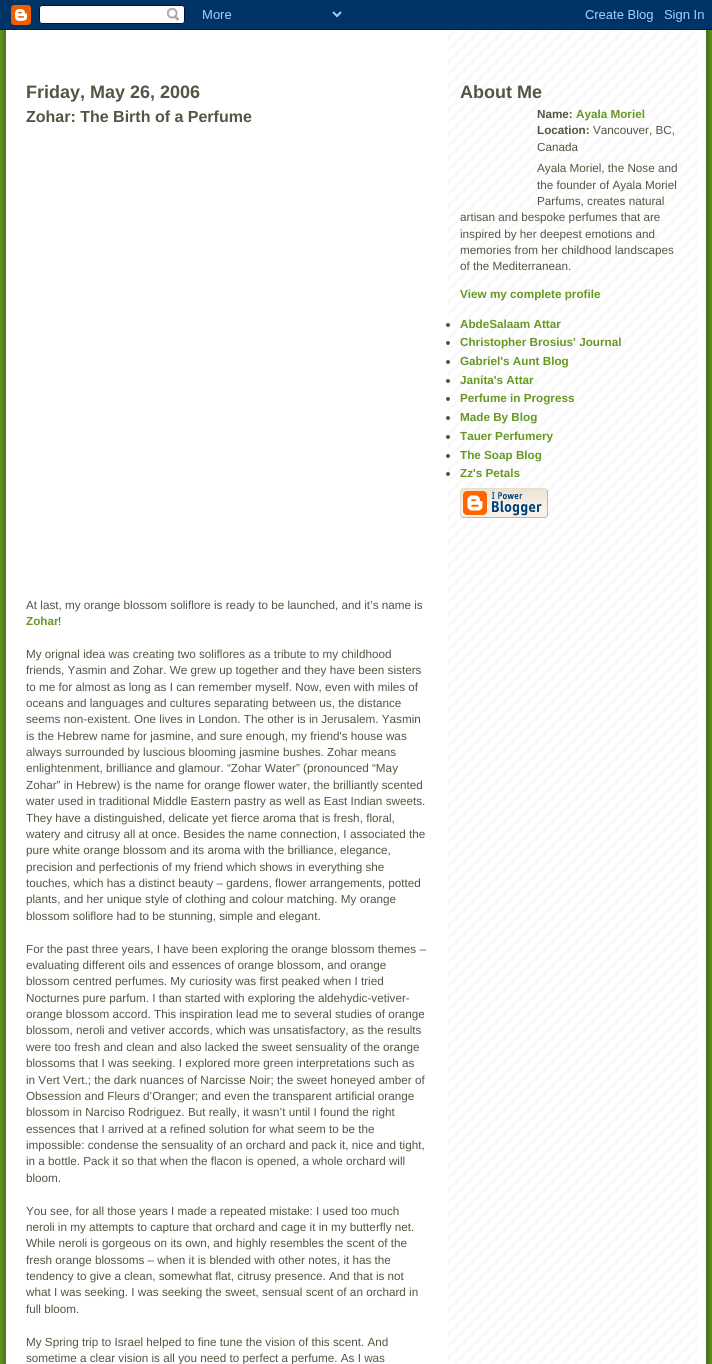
#include <cairo/cairo.h>
#include <math.h>
#include <stddef.h>

static cairo_t *cr;

static void use_color(int r, int g, int b) {
  cairo_set_source_rgb(cr, r / 255.0, g / 255.0, b / 255.0);
}

static void text(double x, double y, const char *s, const char *family, double size, int italic, int bold, int r, int g, int b) {
  cairo_select_font_face(cr, family, italic ? CAIRO_FONT_SLANT_ITALIC : CAIRO_FONT_SLANT_NORMAL,
    bold ? CAIRO_FONT_WEIGHT_BOLD : CAIRO_FONT_WEIGHT_NORMAL);
  cairo_set_font_size(cr, size);
  use_color(r, g, b);
  cairo_move_to(cr, x, y);
  cairo_show_text(cr, s);
}

static void box(double x, double y, double w, double h, int r, int g, int b) {
  use_color(r, g, b);
  cairo_rectangle(cr, x, y, w, h);
  cairo_fill(cr);
}

static void picture(const char *path, double x, double y, double w, double h) {
  cairo_surface_t *image = cairo_image_surface_create_from_png(path);
  cairo_save(cr);
  cairo_set_source_surface(cr, image, x, y);
  cairo_rectangle(cr, x, y, w, h);
  cairo_fill(cr);
  cairo_restore(cr);
  cairo_surface_destroy(image);
}

static void draw(void) {
  use_color(255, 255, 255);
  cairo_paint(cr);
  picture("img_01.png", 0, 30, 712, 1334);
  picture("img_02.png", 0, 0, 712, 30);
  box(6, 30, 700, 1334, 255, 255, 255);
  picture("img_03.png", 448, 30, 250, 1334);
  use_color(85, 85, 68);
  cairo_arc(cr, 448, 325, 2, 0, 2 * M_PI);
  cairo_fill(cr);
  cairo_arc(cr, 448, 343, 2, 0, 2 * M_PI);
  cairo_fill(cr);
  cairo_arc(cr, 448, 362, 2, 0, 2 * M_PI);
  cairo_fill(cr);
  cairo_arc(cr, 448, 381, 2, 0, 2 * M_PI);
  cairo_fill(cr);
  cairo_arc(cr, 448, 399, 2, 0, 2 * M_PI);
  cairo_fill(cr);
  cairo_arc(cr, 448, 418, 2, 0, 2 * M_PI);
  cairo_fill(cr);
  cairo_arc(cr, 448, 437, 2, 0, 2 * M_PI);
  cairo_fill(cr);
  cairo_arc(cr, 448, 456, 2, 0, 2 * M_PI);
  cairo_fill(cr);
  cairo_arc(cr, 448, 474, 2, 0, 2 * M_PI);
  cairo_fill(cr);
  picture("img_04.png", 460, 488, 88, 30);
  text(26, 98, "Friday, May 26, 2006", "Liberation Sans", 18, 0, 1, 85, 85, 68);
  text(26, 122, "Zohar: The Birth of a Perfume", "Liberation Sans", 16, 0, 1, 85, 85, 68);
  text(26, 609, "At last, my orange blossom soliflore is ready to be launched, and it’s name is", "Liberation Sans", 11.7, 0, 0, 85, 85, 68);
  text(26, 625, "Zohar", "Liberation Sans", 11.7, 0, 1, 102, 153, 34);
  text(58, 625, "!", "Liberation Sans", 11.7, 0, 0, 85, 85, 68);
  text(26, 658, "My orignal idea was creating two soliflores as a tribute to my childhood", "Liberation Sans", 11.7, 0, 0, 85, 85, 68);
  text(26, 674, "friends, Yasmin and Zohar. We grew up together and they have been sisters", "Liberation Sans", 11.7, 0, 0, 85, 85, 68);
  text(26, 691, "to me for almost as long as I can remember myself. Now, even with miles of", "Liberation Sans", 11.7, 0, 0, 85, 85, 68);
  text(26, 707, "oceans and languages and cultures separating between us, the distance", "Liberation Sans", 11.7, 0, 0, 85, 85, 68);
  text(26, 723, "seems non-existent. One lives in London. The other is in Jerusalem. Yasmin", "Liberation Sans", 11.7, 0, 0, 85, 85, 68);
  text(26, 740, "is the Hebrew name for jasmine, and sure enough, my friend's house was", "Liberation Sans", 11.7, 0, 0, 85, 85, 68);
  text(26, 756, "always surrounded by luscious blooming jasmine bushes. Zohar means", "Liberation Sans", 11.7, 0, 0, 85, 85, 68);
  text(26, 772, "enlightenment, brilliance and glamour. “Zohar Water” (pronounced “May", "Liberation Sans", 11.7, 0, 0, 85, 85, 68);
  text(26, 789, "Zohar” in Hebrew) is the name for orange flower water, the brilliantly scented", "Liberation Sans", 11.7, 0, 0, 85, 85, 68);
  text(26, 805, "water used in traditional Middle Eastern pastry as well as East Indian sweets.", "Liberation Sans", 11.7, 0, 0, 85, 85, 68);
  text(26, 822, "They have a distinguished, delicate yet fierce aroma that is fresh, floral,", "Liberation Sans", 11.7, 0, 0, 85, 85, 68);
  text(26, 838, "watery and citrusy all at once. Besides the name connection, I associated the", "Liberation Sans", 11.7, 0, 0, 85, 85, 68);
  text(26, 854, "pure white orange blossom and its aroma with the brilliance, elegance,", "Liberation Sans", 11.7, 0, 0, 85, 85, 68);
  text(26, 871, "precision and perfectionis of my friend which shows in everything she", "Liberation Sans", 11.7, 0, 0, 85, 85, 68);
  text(26, 887, "touches, which has a distinct beauty – gardens, flower arrangements, potted", "Liberation Sans", 11.7, 0, 0, 85, 85, 68);
  text(26, 903, "plants, and her unique style of clothing and colour matching. My orange", "Liberation Sans", 11.7, 0, 0, 85, 85, 68);
  text(26, 920, "blossom soliflore had to be stunning, simple and elegant.", "Liberation Sans", 11.7, 0, 0, 85, 85, 68);
  text(26, 953, "For the past three years, I have been exploring the orange blossom themes –", "Liberation Sans", 11.7, 0, 0, 85, 85, 68);
  text(26, 969, "evaluating different oils and essences of orange blossom, and orange", "Liberation Sans", 11.7, 0, 0, 85, 85, 68);
  text(26, 985, "blossom centred perfumes. My curiosity was first peaked when I tried", "Liberation Sans", 11.7, 0, 0, 85, 85, 68);
  text(26, 1002, "Nocturnes pure parfum. I than started with exploring the aldehydic-vetiver-", "Liberation Sans", 11.7, 0, 0, 85, 85, 68);
  text(26, 1018, "orange blossom accord. This inspiration lead me to several studies of orange", "Liberation Sans", 11.7, 0, 0, 85, 85, 68);
  text(26, 1034, "blossom, neroli and vetiver accords, which was unsatisfactory, as the results", "Liberation Sans", 11.7, 0, 0, 85, 85, 68);
  text(26, 1051, "were too fresh and clean and also lacked the sweet sensuality of the orange", "Liberation Sans", 11.7, 0, 0, 85, 85, 68);
  text(26, 1067, "blossoms that I was seeking. I explored more green interpretations such as", "Liberation Sans", 11.7, 0, 0, 85, 85, 68);
  text(26, 1084, "in Vert Vert.; the dark nuances of Narcisse Noir; the sweet honeyed amber of", "Liberation Sans", 11.7, 0, 0, 85, 85, 68);
  text(26, 1100, "Obsession and Fleurs d’Oranger; and even the transparent artificial orange", "Liberation Sans", 11.7, 0, 0, 85, 85, 68);
  text(26, 1116, "blossom in Narciso Rodriguez. But really, it wasn’t until I found the right", "Liberation Sans", 11.7, 0, 0, 85, 85, 68);
  text(26, 1133, "essences that I arrived at a refined solution for what seem to be the", "Liberation Sans", 11.7, 0, 0, 85, 85, 68);
  text(26, 1149, "impossible: condense the sensuality of an orchard and pack it, nice and tight,", "Liberation Sans", 11.7, 0, 0, 85, 85, 68);
  text(26, 1165, "in a bottle. Pack it so that when the flacon is opened, a whole orchard will", "Liberation Sans", 11.7, 0, 0, 85, 85, 68);
  text(26, 1182, "bloom.", "Liberation Sans", 11.7, 0, 0, 85, 85, 68);
  text(26, 1215, "You see, for all those years I made a repeated mistake: I used too much", "Liberation Sans", 11.7, 0, 0, 85, 85, 68);
  text(26, 1231, "neroli in my attempts to capture that orchard and cage it in my butterfly net.", "Liberation Sans", 11.7, 0, 0, 85, 85, 68);
  text(26, 1247, "While neroli is gorgeous on its own, and highly resembles the scent of the", "Liberation Sans", 11.7, 0, 0, 85, 85, 68);
  text(26, 1264, "fresh orange blossoms – when it is blended with other notes, it has the", "Liberation Sans", 11.7, 0, 0, 85, 85, 68);
  text(26, 1280, "tendency to give a clean, somewhat flat, citrusy presence. And that is not", "Liberation Sans", 11.7, 0, 0, 85, 85, 68);
  text(26, 1296, "what I was seeking. I was seeking the sweet, sensual scent of an orchard in", "Liberation Sans", 11.7, 0, 0, 85, 85, 68);
  text(26, 1313, "full bloom.", "Liberation Sans", 11.7, 0, 0, 85, 85, 68);
  text(26, 1346, "My Spring trip to Israel helped to fine tune the vision of this scent. And", "Liberation Sans", 11.7, 0, 0, 85, 85, 68);
  text(26, 1362, "sometime a clear vision is all you need to perfect a perfume. As I was", "Liberation Sans", 11.7, 0, 0, 85, 85, 68);
  text(460, 98, "About Me", "Liberation Sans", 18, 0, 1, 85, 85, 68);
  text(537, 118, "Name:", "Liberation Sans", 11.7, 0, 1, 85, 85, 68);
  text(576, 118, "Ayala Moriel", "Liberation Sans", 11.7, 0, 1, 102, 153, 34);
  text(537, 134, "Location:", "Liberation Sans", 11.7, 0, 1, 85, 85, 68);
  text(593, 134, "Vancouver, BC,", "Liberation Sans", 11.7, 0, 0, 85, 85, 68);
  text(537, 151, "Canada", "Liberation Sans", 11.7, 0, 0, 85, 85, 68);
  text(537, 172, "Ayala Moriel, the Nose and", "Liberation Sans", 11.7, 0, 0, 85, 85, 68);
  text(537, 189, "the founder of Ayala Moriel", "Liberation Sans", 11.7, 0, 0, 85, 85, 68);
  text(537, 205, "Parfums, creates natural", "Liberation Sans", 11.7, 0, 0, 85, 85, 68);
  text(460, 221, "artisan and bespoke perfumes that are", "Liberation Sans", 11.7, 0, 0, 85, 85, 68);
  text(460, 238, "inspired by her deepest emotions and", "Liberation Sans", 11.7, 0, 0, 85, 85, 68);
  text(460, 254, "memories from her childhood landscapes", "Liberation Sans", 11.7, 0, 0, 85, 85, 68);
  text(460, 270, "of the Mediterranean.", "Liberation Sans", 11.7, 0, 0, 85, 85, 68);
  text(460, 298, "View my complete profile", "Liberation Sans", 11.7, 0, 1, 102, 153, 34);
  text(460, 328, "AbdeSalaam Attar", "Liberation Sans", 11.7, 0, 1, 102, 153, 34);
  text(460, 346, "Christopher Brosius' Journal", "Liberation Sans", 11.7, 0, 1, 102, 153, 34);
  text(460, 365, "Gabriel's Aunt Blog", "Liberation Sans", 11.7, 0, 1, 102, 153, 34);
  text(460, 384, "Janita's Attar", "Liberation Sans", 11.7, 0, 1, 102, 153, 34);
  text(460, 402, "Perfume in Progress", "Liberation Sans", 11.7, 0, 1, 102, 153, 34);
  text(460, 421, "Made By Blog", "Liberation Sans", 11.7, 0, 1, 102, 153, 34);
  text(460, 440, "Tauer Perfumery", "Liberation Sans", 11.7, 0, 1, 102, 153, 34);
  text(460, 459, "The Soap Blog", "Liberation Sans", 11.7, 0, 1, 102, 153, 34);
  text(460, 477, "Zz's Petals", "Liberation Sans", 11.7, 0, 1, 102, 153, 34);
}

int main(void) {
  cairo_surface_t *surface = cairo_image_surface_create(CAIRO_FORMAT_RGB24, 712, 1364);
  cr = cairo_create(surface);
  cairo_font_options_t *options = cairo_font_options_create();
  cairo_font_options_set_hint_metrics(options, CAIRO_HINT_METRICS_OFF);
  cairo_font_options_set_hint_style(options, CAIRO_HINT_STYLE_NONE);
  cairo_set_font_options(cr, options);
  cairo_set_miter_limit(cr, 4);
  draw();
  cairo_surface_write_to_png(surface, "out.png");
  cairo_font_options_destroy(options);
  cairo_destroy(cr);
  cairo_surface_destroy(surface);
  return 0;
}
